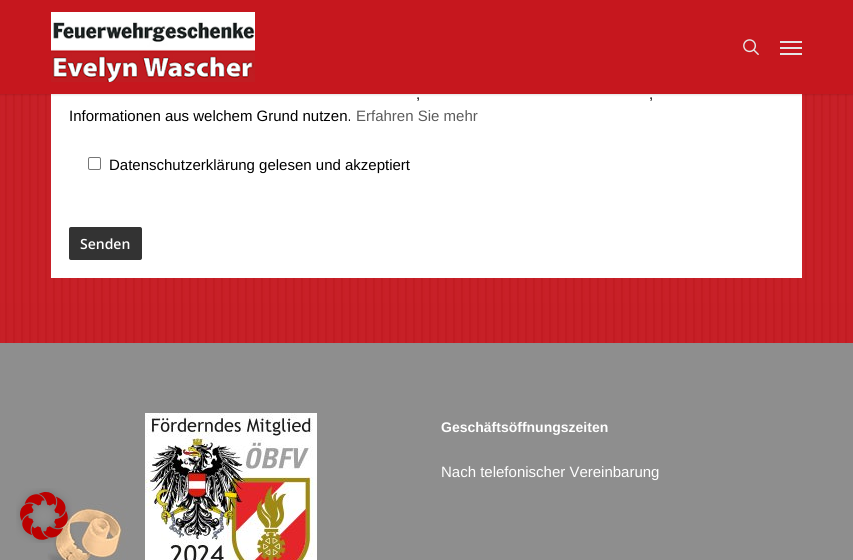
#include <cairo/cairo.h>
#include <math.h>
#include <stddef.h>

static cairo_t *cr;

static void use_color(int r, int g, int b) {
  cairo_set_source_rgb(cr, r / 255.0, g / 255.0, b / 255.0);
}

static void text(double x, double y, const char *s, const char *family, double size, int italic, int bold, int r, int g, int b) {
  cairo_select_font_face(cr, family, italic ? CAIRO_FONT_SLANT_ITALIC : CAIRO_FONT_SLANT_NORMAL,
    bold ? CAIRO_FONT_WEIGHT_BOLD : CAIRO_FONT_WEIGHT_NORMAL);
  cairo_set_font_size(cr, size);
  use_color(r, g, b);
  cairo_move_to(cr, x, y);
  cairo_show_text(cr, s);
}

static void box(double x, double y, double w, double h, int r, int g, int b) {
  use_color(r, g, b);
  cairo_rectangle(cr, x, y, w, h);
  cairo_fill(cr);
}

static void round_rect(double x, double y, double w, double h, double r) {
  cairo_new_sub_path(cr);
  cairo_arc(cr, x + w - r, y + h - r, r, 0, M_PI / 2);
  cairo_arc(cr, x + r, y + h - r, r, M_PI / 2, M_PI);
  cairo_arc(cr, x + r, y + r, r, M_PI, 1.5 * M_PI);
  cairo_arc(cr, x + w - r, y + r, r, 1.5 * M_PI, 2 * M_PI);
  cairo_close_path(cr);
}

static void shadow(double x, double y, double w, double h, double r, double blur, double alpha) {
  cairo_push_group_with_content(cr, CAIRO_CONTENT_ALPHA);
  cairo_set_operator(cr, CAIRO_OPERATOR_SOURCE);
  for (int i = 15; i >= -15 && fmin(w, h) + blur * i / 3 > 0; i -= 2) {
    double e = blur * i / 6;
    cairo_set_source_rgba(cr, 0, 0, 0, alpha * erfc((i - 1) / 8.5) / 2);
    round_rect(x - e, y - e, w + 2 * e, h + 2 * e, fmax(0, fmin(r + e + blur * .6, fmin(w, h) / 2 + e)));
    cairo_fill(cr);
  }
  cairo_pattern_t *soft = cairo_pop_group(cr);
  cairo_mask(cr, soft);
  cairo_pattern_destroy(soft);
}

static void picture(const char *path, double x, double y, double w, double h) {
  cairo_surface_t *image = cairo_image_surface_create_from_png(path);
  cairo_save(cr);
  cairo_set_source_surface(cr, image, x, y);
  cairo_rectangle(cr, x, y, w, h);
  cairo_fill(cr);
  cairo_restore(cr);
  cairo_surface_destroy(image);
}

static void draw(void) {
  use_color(142, 142, 142);
  cairo_paint(cr);
  picture("img_03.png", 0, 94, 853, 209);
  box(51, 94, 751, 184, 255, 255, 255);
  use_color(0, 0, 0);
  shadow(0, -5, 853, 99, 0, 1.5, 0.22);
  box(0, 0, 853, 94, 198, 23, 30);
  picture("img_01.png", 51, 12, 204, 70);
  picture("img_02.png", 743, 39, 16, 16);
  box(780, 41, 22, 2, 229, 229, 229);
  box(780, 53, 22, 2, 229, 229, 229);
  box(780, 47, 22, 2, 229, 229, 229);
  round_rect(88.5, 157.5, 12, 12, 1.5);
  use_color(118, 118, 118);
  cairo_set_line_width(cr, 1);
  cairo_stroke(cr);
  use_color(51, 51, 51);
  round_rect(69, 227, 73, 33, 2);
  cairo_fill(cr);
  picture("img_04.png", 0, 303, 853, 40);
  picture("img_05.png", 47, 503, 98, 57);
  picture("img_06.png", 145, 413, 172, 147);
  picture("img_07.png", 16, 488, 56, 55);
  text(416, 99, ",", "Liberation Sans", 15, 0, 0, 0, 0, 0);
  text(649, 99, ",", "Liberation Sans", 15, 0, 0, 0, 0, 0);
  text(69, 121, "Informationen aus welchem Grund nutzen.", "Liberation Sans", 15, 0, 0, 0, 0, 0);
  text(356, 121, "Erfahren Sie mehr", "Liberation Sans", 15, 0, 0, 91, 91, 91);
  text(109, 170, "Datenschutzerklärung gelesen und akzeptiert", "Liberation Sans", 15, 0, 0, 0, 0, 0);
  text(80, 249, "Senden", "Open Sans SemiBold", 14, 0, 0, 255, 255, 255);
  text(441, 432, "Geschäftsöffnungszeiten", "Liberation Sans", 14, 0, 1, 255, 255, 255);
  text(441, 477, "Nach telefonischer Vereinbarung", "Liberation Sans", 15, 0, 0, 255, 255, 255);
}

int main(void) {
  cairo_surface_t *surface = cairo_image_surface_create(CAIRO_FORMAT_RGB24, 853, 560);
  cr = cairo_create(surface);
  cairo_font_options_t *options = cairo_font_options_create();
  cairo_font_options_set_hint_metrics(options, CAIRO_HINT_METRICS_OFF);
  cairo_font_options_set_hint_style(options, CAIRO_HINT_STYLE_NONE);
  cairo_set_font_options(cr, options);
  cairo_set_miter_limit(cr, 4);
  draw();
  cairo_surface_write_to_png(surface, "out.png");
  cairo_font_options_destroy(options);
  cairo_destroy(cr);
  cairo_surface_destroy(surface);
  return 0;
}
